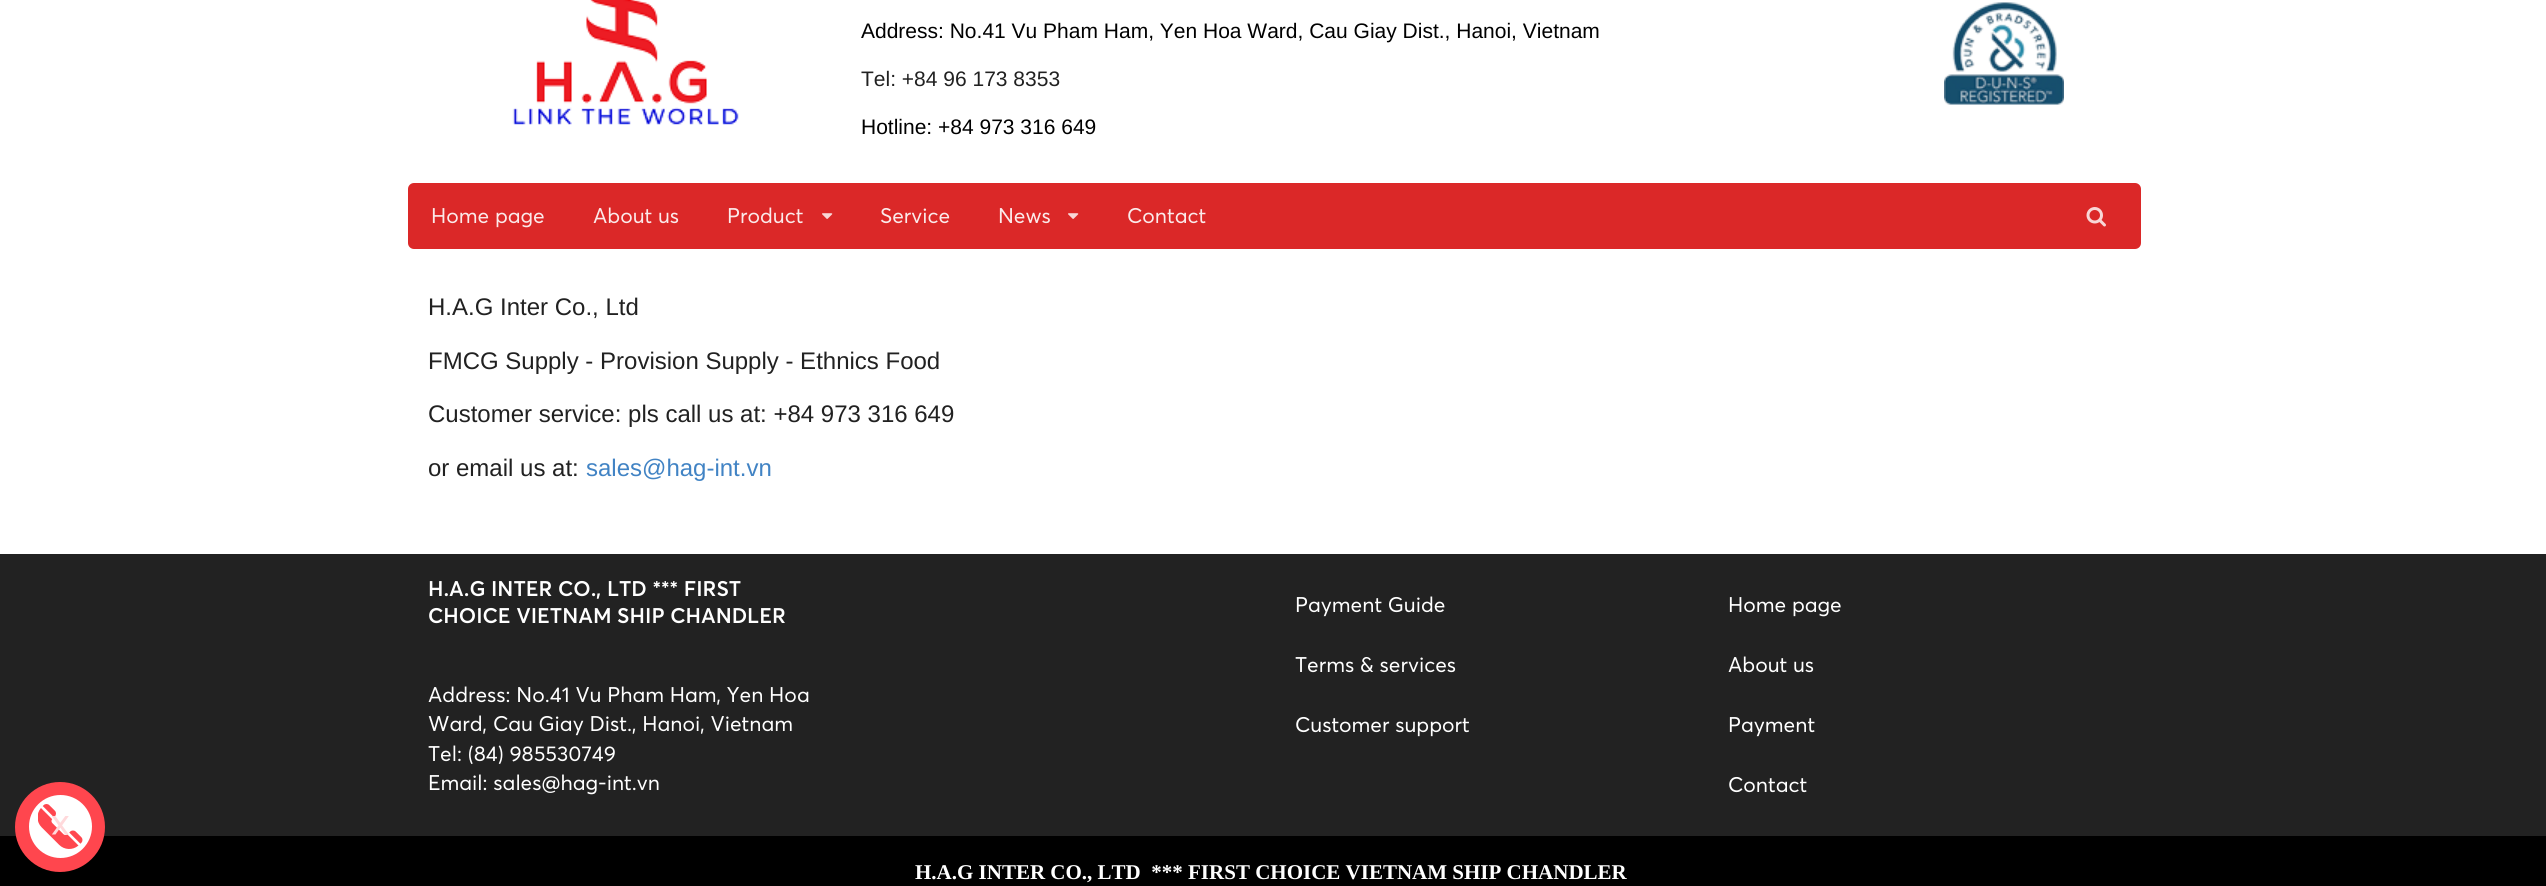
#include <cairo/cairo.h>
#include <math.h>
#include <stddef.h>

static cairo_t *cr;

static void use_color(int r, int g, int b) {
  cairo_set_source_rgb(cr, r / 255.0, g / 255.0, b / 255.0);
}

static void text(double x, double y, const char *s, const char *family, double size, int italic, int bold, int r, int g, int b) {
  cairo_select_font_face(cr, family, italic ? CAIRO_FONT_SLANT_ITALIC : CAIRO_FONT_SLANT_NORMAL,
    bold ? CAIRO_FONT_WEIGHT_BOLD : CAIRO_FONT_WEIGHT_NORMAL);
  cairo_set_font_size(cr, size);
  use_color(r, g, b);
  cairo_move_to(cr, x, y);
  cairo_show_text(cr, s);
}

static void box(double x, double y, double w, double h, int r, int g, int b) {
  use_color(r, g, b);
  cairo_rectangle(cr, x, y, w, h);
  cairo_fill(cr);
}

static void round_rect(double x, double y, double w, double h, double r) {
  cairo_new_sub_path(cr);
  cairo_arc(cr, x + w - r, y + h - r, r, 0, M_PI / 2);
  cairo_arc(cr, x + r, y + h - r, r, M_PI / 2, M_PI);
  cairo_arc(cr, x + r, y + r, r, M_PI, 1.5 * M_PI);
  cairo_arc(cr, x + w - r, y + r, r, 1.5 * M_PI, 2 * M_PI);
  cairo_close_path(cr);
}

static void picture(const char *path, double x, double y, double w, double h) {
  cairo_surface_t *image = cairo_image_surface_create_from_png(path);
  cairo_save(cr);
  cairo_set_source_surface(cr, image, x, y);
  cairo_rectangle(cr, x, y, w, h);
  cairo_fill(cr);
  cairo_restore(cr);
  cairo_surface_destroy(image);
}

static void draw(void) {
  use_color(255, 255, 255);
  cairo_paint(cr);
  box(0, 554, 2546, 282, 34, 34, 34);
  box(0, 836, 2546, 50, 0, 0, 0);
  use_color(255, 70, 78);
  cairo_arc(cr, 60, 827, 45, 0, 2 * M_PI);
  cairo_fill(cr);
  use_color(255, 255, 255);
  cairo_arc(cr, 60.5, 826.5, 31.5, 0, 2 * M_PI);
  cairo_fill(cr);
  picture("img_01.png", 38, 804, 45, 45);
  picture("img_02.png", 512, 0, 227, 125);
  picture("img_03.png", 1944, 2, 120, 103);
  use_color(219, 40, 40);
  round_rect(408, 183, 1733, 66, 6);
  cairo_fill(cr);
  picture("img_04.png", 822, 213, 11, 6);
  picture("img_04.png", 1068, 213, 11, 6);
  picture("img_05.png", 2086, 207, 20, 20);
  cairo_save(cr);
  cairo_translate(cr, 70, 816);
  cairo_rotate(cr, 180 * M_PI / 180);
  text(0, 0, "x", "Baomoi", 38, 0, 0, 255, 217, 219);
  cairo_restore(cr);
  text(861, 38, "Address: No.41 Vu Pham Ham, Yen Hoa Ward, Cau Giay Dist., Hanoi, Vietnam", "Liberation Sans", 21, 0, 0, 0, 0, 0);
  text(861, 86, "Tel: +84 96 173 8353", "Liberation Sans", 21, 0, 0, 33, 33, 33);
  text(861, 134, "Hotline: +84 973 316 649", "Liberation Sans", 21, 0, 0, 0, 0, 0);
  text(431, 223, "Home page", "Baomoi", 21, 0, 0, 251, 234, 234);
  text(593, 223, "About us", "Baomoi", 21, 0, 0, 251, 234, 234);
  text(727, 223, "Product", "Baomoi", 21, 0, 0, 251, 234, 234);
  text(880, 223, "Service", "Baomoi", 21, 0, 0, 251, 234, 234);
  text(998, 223, "News", "Baomoi", 21, 0, 0, 251, 234, 234);
  text(1127, 223, "Contact", "Baomoi", 21, 0, 0, 251, 234, 234);
  text(428, 315, "H.A.G Inter Co., Ltd", "Liberation Sans", 24, 0, 0, 33, 33, 33);
  text(428, 369, "FMCG Supply - Provision Supply - Ethnics Food", "Liberation Sans", 24, 0, 0, 33, 33, 33);
  text(428, 422, "Customer service: pls call us at: +84 973 316 649", "Liberation Sans", 24, 0, 0, 33, 33, 33);
  text(428, 476, "or email us at:", "Liberation Sans", 24, 0, 0, 33, 33, 33);
  text(586, 476, "sales@hag-int.vn", "Liberation Sans", 24, 0, 0, 65, 131, 196);
  text(428, 596, "H.A.G INTER CO., LTD *** FIRST", "Baomoi SemiBold", 21, 0, 0, 255, 255, 255);
  text(428, 623, "CHOICE VIETNAM SHIP CHANDLER", "Baomoi SemiBold", 21, 0, 0, 255, 255, 255);
  text(428, 702, "Address: No.41 Vu Pham Ham, Yen Hoa", "Baomoi", 21, 0, 0, 255, 255, 255);
  text(428, 731, "Ward, Cau Giay Dist., Hanoi, Vietnam", "Baomoi", 21, 0, 0, 255, 255, 255);
  text(428, 761, "Tel: (84) 985530749", "Baomoi", 21, 0, 0, 255, 255, 255);
  text(428, 790, "Email: sales@hag-int.vn", "Baomoi", 21, 0, 0, 255, 255, 255);
  text(1295, 612, "Payment Guide", "Baomoi", 21, 0, 0, 255, 255, 255);
  text(1295, 672, "Terms & services", "Baomoi", 21, 0, 0, 255, 255, 255);
  text(1295, 732, "Customer support", "Baomoi", 21, 0, 0, 255, 255, 255);
  text(1728, 612, "Home page", "Baomoi", 21, 0, 0, 255, 255, 255);
  text(1728, 672, "About us", "Baomoi", 21, 0, 0, 255, 255, 255);
  text(1728, 732, "Payment", "Baomoi", 21, 0, 0, 255, 255, 255);
  text(1728, 792, "Contact", "Baomoi", 21, 0, 0, 255, 255, 255);
  text(915, 879, "H.A.G INTER CO., LTD  *** FIRST CHOICE VIETNAM SHIP CHANDLER", "Liberation Serif", 21, 0, 1, 255, 255, 255);
}

int main(void) {
  cairo_surface_t *surface = cairo_image_surface_create(CAIRO_FORMAT_RGB24, 2546, 886);
  cr = cairo_create(surface);
  cairo_font_options_t *options = cairo_font_options_create();
  cairo_font_options_set_hint_metrics(options, CAIRO_HINT_METRICS_OFF);
  cairo_font_options_set_hint_style(options, CAIRO_HINT_STYLE_NONE);
  cairo_set_font_options(cr, options);
  cairo_set_miter_limit(cr, 4);
  draw();
  cairo_surface_write_to_png(surface, "out.png");
  cairo_font_options_destroy(options);
  cairo_destroy(cr);
  cairo_surface_destroy(surface);
  return 0;
}
